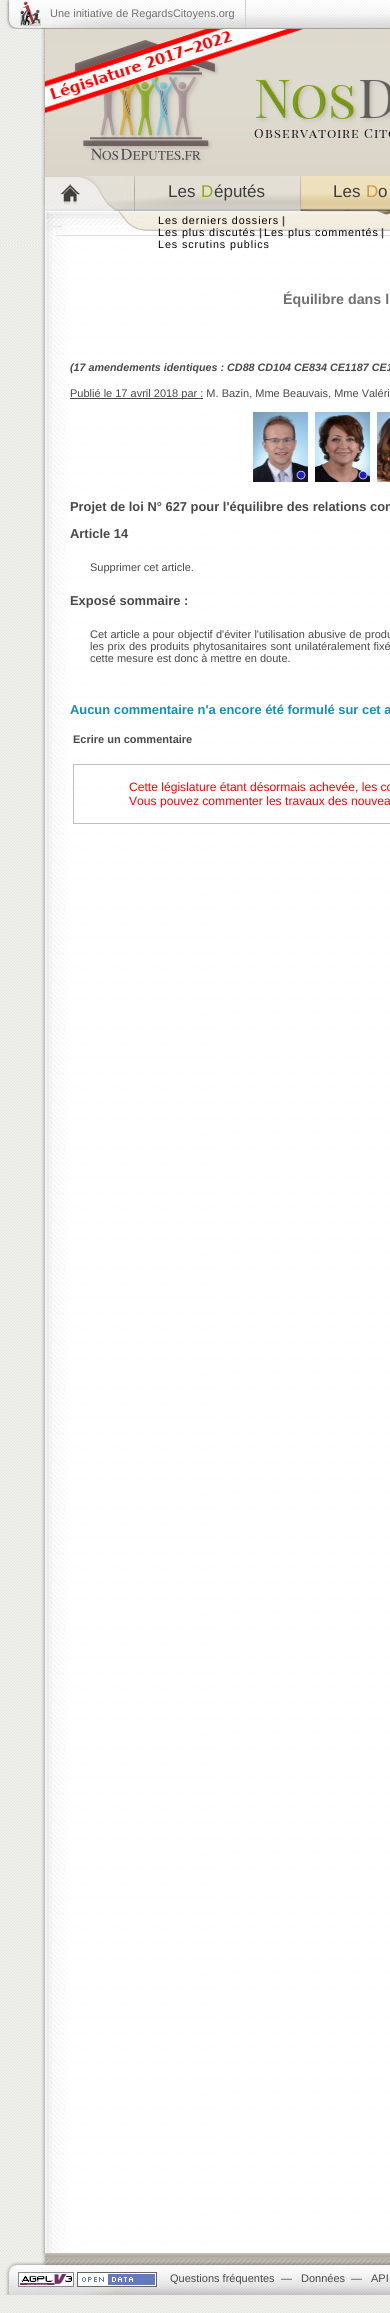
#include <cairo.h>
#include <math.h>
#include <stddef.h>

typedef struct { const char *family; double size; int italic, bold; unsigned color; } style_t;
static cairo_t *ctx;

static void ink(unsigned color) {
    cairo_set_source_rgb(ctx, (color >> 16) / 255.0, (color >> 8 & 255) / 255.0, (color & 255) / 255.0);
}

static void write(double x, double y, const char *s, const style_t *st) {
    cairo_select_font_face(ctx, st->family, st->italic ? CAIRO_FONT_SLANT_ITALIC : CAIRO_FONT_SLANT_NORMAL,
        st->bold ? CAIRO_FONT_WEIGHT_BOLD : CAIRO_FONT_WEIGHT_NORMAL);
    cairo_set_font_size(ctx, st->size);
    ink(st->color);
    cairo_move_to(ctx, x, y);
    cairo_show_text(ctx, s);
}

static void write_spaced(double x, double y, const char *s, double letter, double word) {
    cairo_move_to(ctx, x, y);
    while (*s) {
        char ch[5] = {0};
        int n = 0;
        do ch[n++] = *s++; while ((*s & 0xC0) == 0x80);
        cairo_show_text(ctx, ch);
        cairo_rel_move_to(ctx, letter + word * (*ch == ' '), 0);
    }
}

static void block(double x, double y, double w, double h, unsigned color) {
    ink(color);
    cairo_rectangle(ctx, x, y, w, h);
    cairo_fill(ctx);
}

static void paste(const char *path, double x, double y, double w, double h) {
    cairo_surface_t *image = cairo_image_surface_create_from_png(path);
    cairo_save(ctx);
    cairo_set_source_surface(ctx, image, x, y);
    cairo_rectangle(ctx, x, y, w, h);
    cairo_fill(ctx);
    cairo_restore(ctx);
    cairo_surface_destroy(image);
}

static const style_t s1 = {"Liberation Sans", 11, 0, 0, 0x6f6f6f};
static const style_t s2 = {"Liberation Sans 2", 17, 0, 0, 0x3c3c3c};
static const style_t s3 = {"Liberation Sans 2", 17, 0, 0, 0x8aa915};
static const style_t s4 = {"Liberation Sans 2", 17, 0, 0, 0xd4963e};
static const style_t s5 = {"Liberation Sans", 10.75, 0, 1, 0x484848};
static const style_t s6 = {"Liberation Sans", 14.25, 0, 1, 0x6f6f6f};
static const style_t s7 = {"Liberation Sans", 10.75, 1, 1, 0x484848};
static const style_t s8 = {"Liberation Sans", 11, 0, 0, 0x484848};
static const style_t s9 = {"Liberation Sans", 12.9, 0, 1, 0x484848};
static const style_t s10 = {"Liberation Sans", 12.9, 0, 1, 0x158eaf};
static const style_t s11 = {"Liberation Sans", 11, 0, 1, 0x484848};
static const style_t s12 = {"Liberation Sans", 12.1, 0, 0, 0xff0000};

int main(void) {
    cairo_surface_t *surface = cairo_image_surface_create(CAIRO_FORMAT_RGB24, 390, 2313);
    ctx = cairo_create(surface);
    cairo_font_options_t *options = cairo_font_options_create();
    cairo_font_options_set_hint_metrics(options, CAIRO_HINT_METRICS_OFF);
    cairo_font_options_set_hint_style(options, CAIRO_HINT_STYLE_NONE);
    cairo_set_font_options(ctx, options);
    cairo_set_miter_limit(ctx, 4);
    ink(0xffffff);
    cairo_paint(ctx);
    paste("pic1.png", 0, 246, 390, 2067);
    paste("pic2.png", 0, 0, 390, 29);
    paste("pic3.png", 20, 1, 21, 25);
    block(245, 0, 1, 28, 0xcfcfcf);
    write(50, 17, "Une initiative de RegardsCitoyens.org", &s1);
    paste("pic4.png", 0, 29, 44, 147);
    paste("pic5.png", 44, 29, 346, 147);
    paste("pic6.png", 0, 176, 300, 35);
    paste("pic7.png", 62, 185, 72, 26);
    paste("pic8.png", 134, 179, 1, 32);
    write(168, 197, "Les", &s2);
    write(201, 197, "D", &s3);
    write(214, 197, "éputés", &s2);
    paste("pic9.png", 300, 176, 90, 35);
    write(333, 197, "Les", &s2);
    write(366, 197, "D", &s4);
    write(378, 197, "o", &s2);
    paste("pic10.png", 0, 232, 390, 14);
    paste("pic11.png", 0, 211, 390, 21);
    cairo_select_font_face(ctx, "Liberation Sans", CAIRO_FONT_SLANT_NORMAL, CAIRO_FONT_WEIGHT_NORMAL);
    cairo_set_font_size(ctx, 10.75);
    ink(0x000000);
    write_spaced(158, 224, "Les derniers dossiers", 0.9, 0);
    write(282, 224, "|", &s5);
    cairo_select_font_face(ctx, "Liberation Sans", CAIRO_FONT_SLANT_NORMAL, CAIRO_FONT_WEIGHT_NORMAL);
    ink(0x000000);
    write_spaced(158, 236, "Les plus discutés", 0.9, 0);
    write(259, 236, "|", &s5);
    cairo_select_font_face(ctx, "Liberation Sans", CAIRO_FONT_SLANT_NORMAL, CAIRO_FONT_WEIGHT_NORMAL);
    ink(0x000000);
    write_spaced(264, 236, "Les plus commentés", 0.9, 0);
    write(381, 236, "|", &s5);
    paste("pic12.png", 41, 246, 349, 2007);
    cairo_select_font_face(ctx, "Liberation Sans", CAIRO_FONT_SLANT_NORMAL, CAIRO_FONT_WEIGHT_NORMAL);
    ink(0x000000);
    write_spaced(158, 248, "Les scrutins publics", 0.9, 0);
    write(283, 304, "Équilibre dans l", &s6);
    write(70, 371, "(17 amendements identiques : CD88 CD104 CE834 CE1187 CE1", &s7);
    block(70, 398, 133, 1, 0x484848);
    write(70, 397, "Publié le 17 avril 2018 par : M. Bazin, Mme Beauvais, Mme Valéri", &s8);
    paste("pic13.png", 253, 412, 55, 70);
    paste("pic14.png", 315, 412, 55, 70);
    paste("pic15.png", 377, 412, 13, 70);
    write(70, 511, "Projet de loi N° 627 pour l'équilibre des relations com", &s9);
    write(70, 538, "Article 14", &s9);
    write(90, 571, "Supprimer cet article.", &s8);
    write(70, 605, "Exposé sommaire :", &s9);
    cairo_select_font_face(ctx, "Liberation Sans", CAIRO_FONT_SLANT_NORMAL, CAIRO_FONT_WEIGHT_NORMAL);
    cairo_set_font_size(ctx, 11);
    write_spaced(90, 638, "Cet article a pour objectif d'éviter l'utilisation abusive de produ", 0, 0.25);
    write_spaced(90, 650, "les prix des produits phytosanitaires sont unilatéralement fixé", 0, 0.5);
    write(90, 662, "cette mesure est donc à mettre en doute.", &s8);
    write(70, 714, "Aucun commentaire n'a encore été formulé sur cet a", &s10);
    write(73, 743, "Ecrire un commentaire", &s11);
    cairo_rectangle(ctx, 73.5, 764.5, 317, 59);
    ink(0xbfbfbf);
    cairo_set_line_width(ctx, 1);
    cairo_stroke(ctx);
    write(129, 791, "Cette législature étant désormais achevée, les co", &s12);
    write(129, 805, "Vous pouvez commenter les travaux des nouvea", &s12);
    paste("pic16.png", 0, 2253, 390, 42);
    paste("pic17.png", 18, 2272, 56, 15);
    paste("pic18.png", 77, 2272, 80, 15);
    write(170, 2282, "Questions fréquentes", &s8);
    write(281, 2282, "—", &s8);
    write(301, 2282, "Données", &s8);
    write(351, 2282, "—", &s8);
    write(371, 2282, "API", &s8);
    cairo_surface_write_to_png(surface, "screenshot.png");
    cairo_font_options_destroy(options);
    cairo_destroy(ctx);
    cairo_surface_destroy(surface);
    return 0;
}
